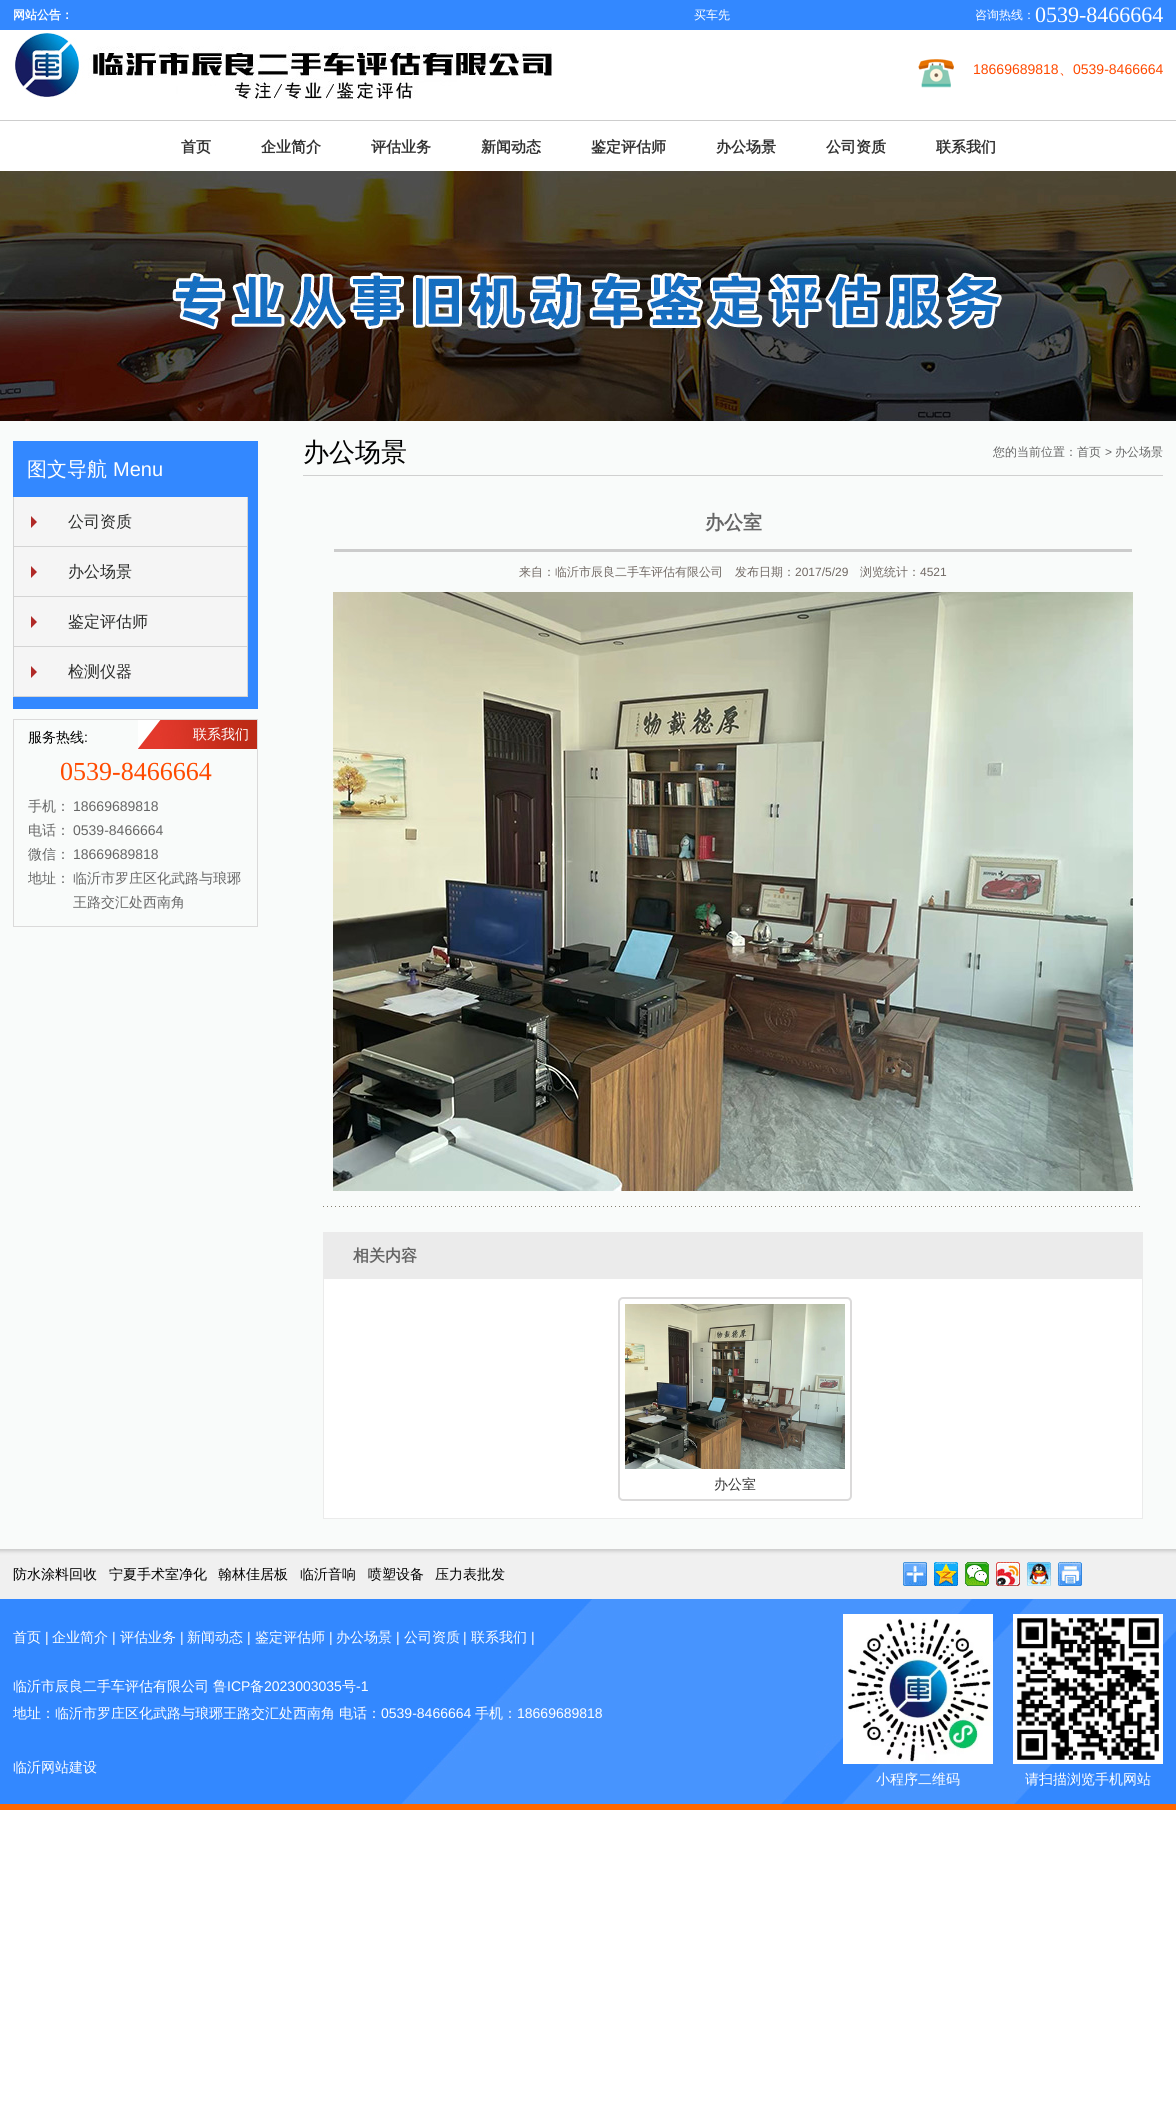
#include <cairo.h>
#include <math.h>
#include <stddef.h>

typedef struct { const char *family; double size; int italic, bold; unsigned color; } style_t;
static cairo_t *ctx;

static void ink(unsigned color) {
    cairo_set_source_rgb(ctx, (color >> 16) / 255.0, (color >> 8 & 255) / 255.0, (color & 255) / 255.0);
}

static void write(double x, double y, const char *s, const style_t *st) {
    cairo_select_font_face(ctx, st->family, st->italic ? CAIRO_FONT_SLANT_ITALIC : CAIRO_FONT_SLANT_NORMAL,
        st->bold ? CAIRO_FONT_WEIGHT_BOLD : CAIRO_FONT_WEIGHT_NORMAL);
    cairo_set_font_size(ctx, st->size);
    ink(st->color);
    cairo_move_to(ctx, x, y);
    cairo_show_text(ctx, s);
}

static void block(double x, double y, double w, double h, unsigned color) {
    ink(color);
    cairo_rectangle(ctx, x, y, w, h);
    cairo_fill(ctx);
}

static void round_path(double x, double y, double w, double h, double r) {
    cairo_new_sub_path(ctx);
    cairo_arc(ctx, x + w - r, y + h - r, r, 0, M_PI / 2);
    cairo_arc(ctx, x + r, y + h - r, r, M_PI / 2, M_PI);
    cairo_arc(ctx, x + r, y + r, r, M_PI, 1.5 * M_PI);
    cairo_arc(ctx, x + w - r, y + r, r, 1.5 * M_PI, 2 * M_PI);
    cairo_close_path(ctx);
}

static void paste(const char *path, double x, double y, double w, double h) {
    cairo_surface_t *image = cairo_image_surface_create_from_png(path);
    cairo_save(ctx);
    cairo_set_source_surface(ctx, image, x, y);
    cairo_rectangle(ctx, x, y, w, h);
    cairo_fill(ctx);
    cairo_restore(ctx);
    cairo_surface_destroy(image);
}

static const style_t s1 = {"WenQuanYi Zen Hei", 12, 0, 1, 0xffffff};
static const style_t s2 = {"WenQuanYi Zen Hei Medium", 12, 0, 0, 0xffffff};
static const style_t s3 = {"Liberation Serif", 22, 0, 0, 0xffffff};
static const style_t s4 = {"Liberation Sans", 14, 0, 0, 0xff4a00};
static const style_t s5 = {"WenQuanYi Zen Hei Medium", 14, 0, 0, 0xff4a00};
static const style_t s6 = {"WenQuanYi Zen Hei", 15, 0, 1, 0x333333};
static const style_t s7 = {"WenQuanYi Zen Hei Medium", 20, 0, 0, 0xffffff};
static const style_t s8 = {"Liberation Sans", 20, 0, 0, 0xffffff};
static const style_t s9 = {"WenQuanYi Zen Hei Medium", 16, 0, 0, 0x2c2d2c};
static const style_t s10 = {"WenQuanYi Zen Hei Medium", 14, 0, 0, 0x000000};
static const style_t s11 = {"Liberation Sans", 14, 0, 0, 0x000000};
static const style_t s12 = {"WenQuanYi Zen Hei Medium", 14, 0, 0, 0xffffff};
static const style_t s13 = {"Liberation Serif", 26, 0, 0, 0xff4a00};
static const style_t s14 = {"WenQuanYi Zen Hei Medium", 14, 0, 0, 0x666666};
static const style_t s15 = {"Liberation Sans", 14, 0, 0, 0x666666};
static const style_t s16 = {"WenQuanYi Zen Hei Medium", 26, 0, 0, 0x000000};
static const style_t s17 = {"WenQuanYi Zen Hei Medium", 12, 0, 0, 0x666666};
static const style_t s18 = {"Liberation Sans", 12, 0, 0, 0x666666};
static const style_t s19 = {"WenQuanYi Zen Hei", 19, 0, 1, 0x666666};
static const style_t s20 = {"WenQuanYi Zen Hei Medium", 12, 0, 0, 0x716964};
static const style_t s21 = {"Liberation Sans", 12, 0, 0, 0x716964};
static const style_t s22 = {"WenQuanYi Zen Hei", 16, 0, 1, 0x666666};
static const style_t s23 = {"WenQuanYi Zen Hei Medium", 14, 0, 0, 0x333333};
static const style_t s24 = {"Liberation Sans", 14, 0, 0, 0xffffff};

int main(void) {
    cairo_surface_t *surface = cairo_image_surface_create(CAIRO_FORMAT_RGB24, 1176, 2108);
    ctx = cairo_create(surface);
    cairo_font_options_t *options = cairo_font_options_create();
    cairo_font_options_set_hint_metrics(options, CAIRO_HINT_METRICS_OFF);
    cairo_font_options_set_hint_style(options, CAIRO_HINT_STYLE_NONE);
    cairo_set_font_options(ctx, options);
    cairo_set_miter_limit(ctx, 4);
    ink(0xffffff);
    cairo_paint(ctx);
    block(0, 0, 1176, 30, 0x3388ff);
    write(13, 19, "网站公告：", &s1);
    write(694, 19, "买车先", &s2);
    write(975, 19, "咨询热线：", &s2);
    write(1035, 22, "0539-8466664", &s3);
    paste("pic1.png", 15, 33, 537, 67);
    paste("pic2.png", 918, 59, 36, 29);
    write(973, 74, "18669689818", &s4);
    write(1059, 74, "、", &s5);
    write(1073, 74, "0539-8466664", &s4);
    block(0, 120, 1176, 1, 0xcdcdcd);
    write(181, 152, "首页", &s6);
    write(261, 152, "企业简介", &s6);
    write(371, 152, "评估业务", &s6);
    write(481, 152, "新闻动态", &s6);
    write(591, 152, "鉴定评估师", &s6);
    write(716, 152, "办公场景", &s6);
    write(826, 152, "公司资质", &s6);
    write(936, 152, "联系我们", &s6);
    paste("pic3.png", 0, 171, 1176, 250);
    block(0, 421, 1176, 1128, 0xf9fbfa);
    block(13, 441, 245, 268, 0x3388ff);
    write(27, 476, "图文导航", &s7);
    write(113, 476, "Menu", &s8);
    paste("pic4.png", 13, 497, 235, 50);
    write(68, 527, "公司资质", &s9);
    paste("pic4.png", 13, 547, 235, 50);
    write(68, 577, "办公场景", &s9);
    paste("pic4.png", 13, 597, 235, 50);
    write(68, 627, "鉴定评估师", &s9);
    paste("pic4.png", 13, 647, 235, 50);
    write(68, 677, "检测仪器", &s9);
    cairo_rectangle(ctx, 13.5, 719.5, 244, 207);
    ink(0xdbdada);
    cairo_set_line_width(ctx, 1);
    cairo_stroke(ctx);
    paste("pic5.png", 138, 720, 119, 29);
    write(28, 742, "服务热线", &s10);
    write(84, 742, ":", &s11);
    write(193, 739, "联系我们", &s12);
    write(60, 780, "0539-8466664", &s13);
    write(28, 811, "手机：", &s14);
    write(73, 811, "18669689818", &s15);
    write(28, 835, "电话：", &s14);
    write(73, 835, "0539-8466664", &s15);
    write(28, 859, "微信：", &s14);
    write(73, 859, "18669689818", &s15);
    write(28, 883, "地址：", &s14);
    write(73, 883, "临沂市罗庄区化武路与琅琊", &s14);
    write(73, 907, "王路交汇处西南角", &s14);
    block(303, 475, 860, 1, 0xd0d0d0);
    write(303, 461, "办公场景", &s16);
    write(993, 456, "您的当前位置：首页", &s17);
    write(1105, 456, ">", &s18);
    write(1115, 456, "办公场景", &s17);
    write(705, 529, "办公室", &s19);
    block(334, 549, 798, 3, 0xcccccc);
    write(519, 576, "来自：临沂市辰良二手车评估有限公司　发布日期：", &s20);
    write(795, 576, "2017/5/29", &s21);
    write(860, 576, "浏览统计：", &s20);
    write(920, 576, "4521", &s21);
    paste("pic6.png", 333, 592, 800, 599);
    paste("pic7.png", 323, 1206, 817, 1);
    block(323, 1232, 820, 287, 0xebebeb);
    write(353, 1261, "相关内容", &s22);
    block(324, 1279, 818, 239, 0xffffff);
    round_path(619, 1298, 232, 202, 4);
    ink(0xdbdada);
    cairo_set_line_width(ctx, 2);
    cairo_stroke(ctx);
    paste("pic8.png", 625, 1304, 220, 165);
    write(714, 1489, "办公室", &s23);
    paste("pic9.png", 0, 1549, 1176, 50);
    write(13, 1579, "防水涂料回收", &s10);
    write(109, 1579, "宁夏手术室净化", &s10);
    write(218, 1579, "翰林佳居板", &s10);
    write(300, 1579, "临沂音响", &s10);
    write(368, 1579, "喷塑设备", &s10);
    write(435, 1579, "压力表批发", &s10);
    paste("pic10.png", 903, 1562, 24, 24);
    paste("pic11.png", 934, 1562, 24, 24);
    paste("pic12.png", 965, 1562, 24, 24);
    paste("pic13.png", 996, 1562, 24, 24);
    paste("pic14.png", 1027, 1562, 24, 24);
    paste("pic15.png", 1058, 1562, 24, 24);
    paste("pic16.png", 0, 1599, 1176, 205);
    write(13, 1642, "首页", &s12);
    write(45, 1642, "|", &s24);
    write(52, 1642, "企业简介", &s12);
    write(112, 1642, "|", &s24);
    write(120, 1642, "评估业务", &s12);
    write(180, 1642, "|", &s24);
    write(187, 1642, "新闻动态", &s12);
    write(247, 1642, "|", &s24);
    write(255, 1642, "鉴定评估师", &s12);
    write(329, 1642, "|", &s24);
    write(336, 1642, "办公场景", &s12);
    write(396, 1642, "|", &s24);
    write(404, 1642, "公司资质", &s12);
    write(463, 1642, "|", &s24);
    write(471, 1642, "联系我们", &s12);
    write(531, 1642, "|", &s24);
    write(13, 1691, "临沂市辰良二手车评估有限公司", &s12);
    write(213, 1691, "鲁", &s12);
    write(227, 1691, "ICP", &s24);
    write(250, 1691, "备", &s12);
    write(264, 1691, "2023003035", &s24);
    write(342, 1691, "号", &s12);
    write(356, 1691, "-1", &s24);
    write(13, 1718, "地址：临沂市罗庄区化武路与琅琊王路交汇处西南角", &s12);
    write(339, 1718, "电话：", &s12);
    write(381, 1718, "0539-8466664", &s24);
    write(475, 1718, "手机：", &s12);
    write(517, 1718, "18669689818", &s24);
    write(13, 1772, "临沂网站建设", &s12);
    paste("pic17.png", 843, 1614, 150, 150);
    write(876, 1784, "小程序二维码", &s12);
    paste("pic18.png", 1013, 1614, 150, 150);
    write(1025, 1784, "请扫描浏览手机网站", &s12);
    block(0, 1804, 1176, 6, 0xff6700);
    cairo_surface_write_to_png(surface, "screenshot.png");
    cairo_font_options_destroy(options);
    cairo_destroy(ctx);
    cairo_surface_destroy(surface);
    return 0;
}
